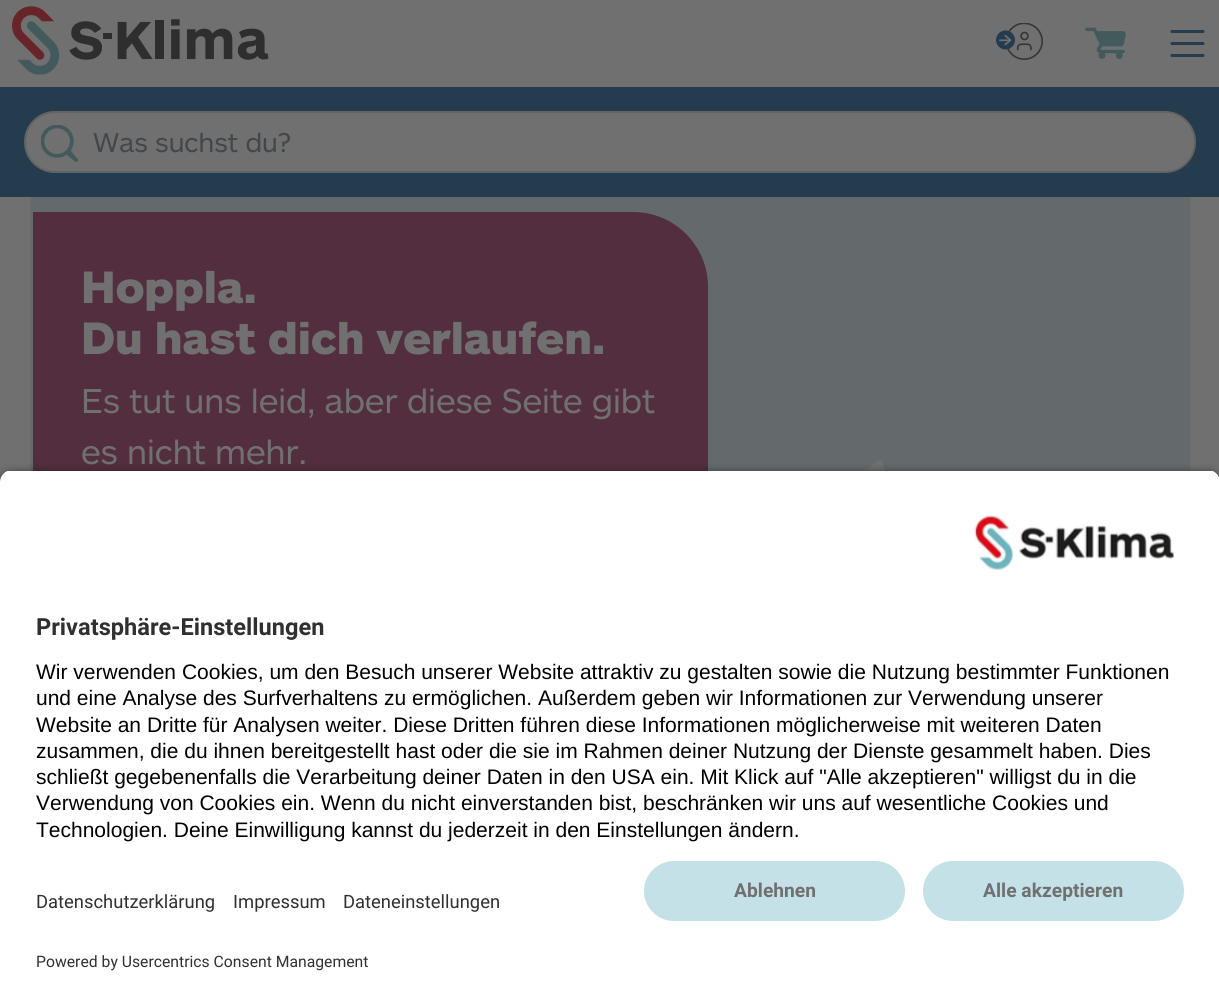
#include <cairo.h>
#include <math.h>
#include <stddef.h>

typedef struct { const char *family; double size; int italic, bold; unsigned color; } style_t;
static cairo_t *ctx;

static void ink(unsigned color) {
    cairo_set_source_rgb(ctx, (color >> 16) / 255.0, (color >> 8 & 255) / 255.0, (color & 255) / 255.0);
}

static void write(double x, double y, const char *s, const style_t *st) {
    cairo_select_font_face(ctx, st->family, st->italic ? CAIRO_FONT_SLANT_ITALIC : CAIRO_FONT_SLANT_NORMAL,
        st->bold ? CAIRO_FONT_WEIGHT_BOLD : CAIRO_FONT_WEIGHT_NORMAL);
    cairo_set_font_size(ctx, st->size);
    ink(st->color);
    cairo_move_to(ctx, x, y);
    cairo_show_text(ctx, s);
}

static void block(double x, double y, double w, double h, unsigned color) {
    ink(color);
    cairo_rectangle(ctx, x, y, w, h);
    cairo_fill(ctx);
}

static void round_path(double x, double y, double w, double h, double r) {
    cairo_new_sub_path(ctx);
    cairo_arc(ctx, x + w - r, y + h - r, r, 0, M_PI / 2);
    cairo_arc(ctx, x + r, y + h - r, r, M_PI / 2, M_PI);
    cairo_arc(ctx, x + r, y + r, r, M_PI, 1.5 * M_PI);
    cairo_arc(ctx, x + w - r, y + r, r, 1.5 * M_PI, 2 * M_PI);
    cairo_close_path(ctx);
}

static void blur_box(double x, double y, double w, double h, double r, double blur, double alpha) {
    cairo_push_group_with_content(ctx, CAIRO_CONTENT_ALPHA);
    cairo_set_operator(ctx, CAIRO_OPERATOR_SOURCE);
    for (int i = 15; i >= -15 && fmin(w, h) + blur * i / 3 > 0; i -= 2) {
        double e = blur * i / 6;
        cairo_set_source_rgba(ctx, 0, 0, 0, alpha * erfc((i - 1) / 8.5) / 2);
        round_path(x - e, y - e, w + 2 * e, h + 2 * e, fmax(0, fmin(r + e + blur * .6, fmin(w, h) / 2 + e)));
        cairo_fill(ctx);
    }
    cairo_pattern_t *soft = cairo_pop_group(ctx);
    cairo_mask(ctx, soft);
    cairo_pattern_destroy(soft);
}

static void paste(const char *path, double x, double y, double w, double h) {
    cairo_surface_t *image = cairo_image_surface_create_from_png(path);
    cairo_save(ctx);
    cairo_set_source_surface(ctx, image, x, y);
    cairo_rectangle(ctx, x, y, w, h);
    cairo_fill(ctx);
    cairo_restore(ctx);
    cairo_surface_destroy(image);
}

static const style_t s1 = {"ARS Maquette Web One", 27, 0, 0, 0x444749};
static const style_t s2 = {"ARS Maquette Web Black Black", 45, 0, 0, 0x707070};
static const style_t s3 = {"ARS Maquette Web One", 34.25, 0, 0, 0x707070};
static const style_t s4 = {"Roboto", 23.6, 0, 1, 0x303030};
static const style_t s5 = {"Liberation Sans", 21, 0, 0, 0x000000};
static const style_t s6 = {"Roboto", 19.25, 0, 1, 0x707070};
static const style_t s7 = {"Roboto", 18.4, 0, 0, 0x303030};
static const style_t s8 = {"Roboto", 15.75, 0, 0, 0x303030};

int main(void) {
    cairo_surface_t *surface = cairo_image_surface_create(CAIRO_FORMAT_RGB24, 1219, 1008);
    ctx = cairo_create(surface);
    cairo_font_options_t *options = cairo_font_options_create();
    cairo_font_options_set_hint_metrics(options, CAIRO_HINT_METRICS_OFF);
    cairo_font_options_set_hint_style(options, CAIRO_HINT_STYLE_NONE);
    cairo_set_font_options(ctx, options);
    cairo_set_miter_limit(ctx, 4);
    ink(0x707070);
    cairo_paint(ctx);
    paste("pic1.png", 12, 6, 257, 69);
    paste("pic2.png", 996, 23, 47, 37);
    paste("pic3.png", 1085, 27, 41, 32);
    cairo_new_path(ctx);
    cairo_move_to(ctx, 1172, 31.5);
    cairo_line_to(ctx, 1203, 31.5);
    cairo_move_to(ctx, 1172, 43.5);
    cairo_line_to(ctx, 1203, 43.5);
    cairo_move_to(ctx, 1172, 55.5);
    cairo_line_to(ctx, 1203, 55.5);
    ink(0x253c4e);
    cairo_set_line_width(ctx, 3);
    cairo_set_line_cap(ctx, CAIRO_LINE_CAP_ROUND);
    cairo_stroke(ctx);
    block(0, 87, 1219, 110, 0x253c4e);
    ink(0x707070);
    round_path(25, 112, 1170, 60, 30);
    cairo_fill_preserve(ctx);
    ink(0x626365);
    cairo_set_line_width(ctx, 2);
    cairo_set_line_cap(ctx, CAIRO_LINE_CAP_BUTT);
    cairo_stroke(ctx);
    paste("pic4.png", 41, 125, 37, 37);
    write(93, 152, "Was suchst du?", &s1);
    block(30, 197, 1160, 274, 0x646a6b);
    ink(0x532e3e);
    cairo_new_path(ctx);
    cairo_move_to(ctx, 33, 212);
    cairo_line_to(ctx, 633, 212);
    cairo_curve_to(ctx, 674.5, 212, 708, 245.5, 708, 287);
    cairo_line_to(ctx, 708, 549);
    cairo_line_to(ctx, 108, 549);
    cairo_curve_to(ctx, 66.5, 549, 33, 515.5, 33, 474);
    cairo_close_path(ctx);
    cairo_fill(ctx);
    write(81, 303, "Hoppla.", &s2);
    write(81, 354, "Du hast dich verlaufen.", &s2);
    write(81, 413, "Es tut uns leid, aber diese Seite gibt", &s3);
    write(81, 464, "es nicht mehr.", &s3);
    paste("pic5.png", 866, 459, 20, 12);
    ink(0x000000);
    blur_box(0, 474, 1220, 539, 12, 5, 0.8);
    cairo_save(ctx);
    cairo_new_path(ctx);
    cairo_move_to(ctx, 12, 470);
    cairo_line_to(ctx, 1208, 470);
    cairo_curve_to(ctx, 1214.5, 470, 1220, 475.5, 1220, 482);
    cairo_line_to(ctx, 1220, 849);
    cairo_line_to(ctx, 0, 849);
    cairo_line_to(ctx, 0, 482);
    cairo_curve_to(ctx, 0, 475.5, 5.5, 470, 12, 470);
    cairo_close_path(ctx);
    cairo_clip(ctx);
    block(0, 471, 1219, 378, 0xffffff);
    cairo_restore(ctx);
    paste("pic6.png", 974, 515, 200, 56);
    write(36, 635, "Privatsphäre-Einstellungen", &s4);
    write(36, 679, "Wir verwenden Cookies, um den Besuch unserer Website attraktiv zu gestalten sowie die Nutzung bestimmter Funktionen", &s5);
    write(36, 705, "und eine Analyse des Surfverhaltens zu ermöglichen. Außerdem geben wir Informationen zur Verwendung unserer", &s5);
    write(36, 732, "Website an Dritte für Analysen weiter. Diese Dritten führen diese Informationen möglicherweise mit weiteren Daten", &s5);
    write(36, 758, "zusammen, die du ihnen bereitgestellt hast oder die sie im Rahmen deiner Nutzung der Dienste gesammelt haben. Dies", &s5);
    write(36, 784, "schließt gegebenenfalls die Verarbeitung deiner Daten in den USA ein. Mit Klick auf \"Alle akzeptieren\" willigst du in die", &s5);
    write(36, 810, "Verwendung von Cookies ein. Wenn du nicht einverstanden bist, beschränken wir uns auf wesentliche Cookies und", &s5);
    write(36, 837, "Technologien. Deine Einwilligung kannst du jederzeit in den Einstellungen ändern.", &s5);
    block(0, 849, 1219, 159, 0xffffff);
    ink(0xc3e1e6);
    round_path(644, 861, 261, 60, 30);
    cairo_fill(ctx);
    write(734, 897, "Ablehnen", &s6);
    ink(0xc3e1e6);
    round_path(923, 861, 261, 60, 30);
    cairo_fill(ctx);
    write(983, 897, "Alle akzeptieren", &s6);
    write(36, 908, "Datenschutzerklärung", &s7);
    write(233, 908, "Impressum", &s7);
    write(343, 908, "Dateneinstellungen", &s7);
    write(36, 967, "Powered by Usercentrics Consent Management", &s8);
    cairo_surface_write_to_png(surface, "screenshot.png");
    cairo_font_options_destroy(options);
    cairo_destroy(ctx);
    cairo_surface_destroy(surface);
    return 0;
}
